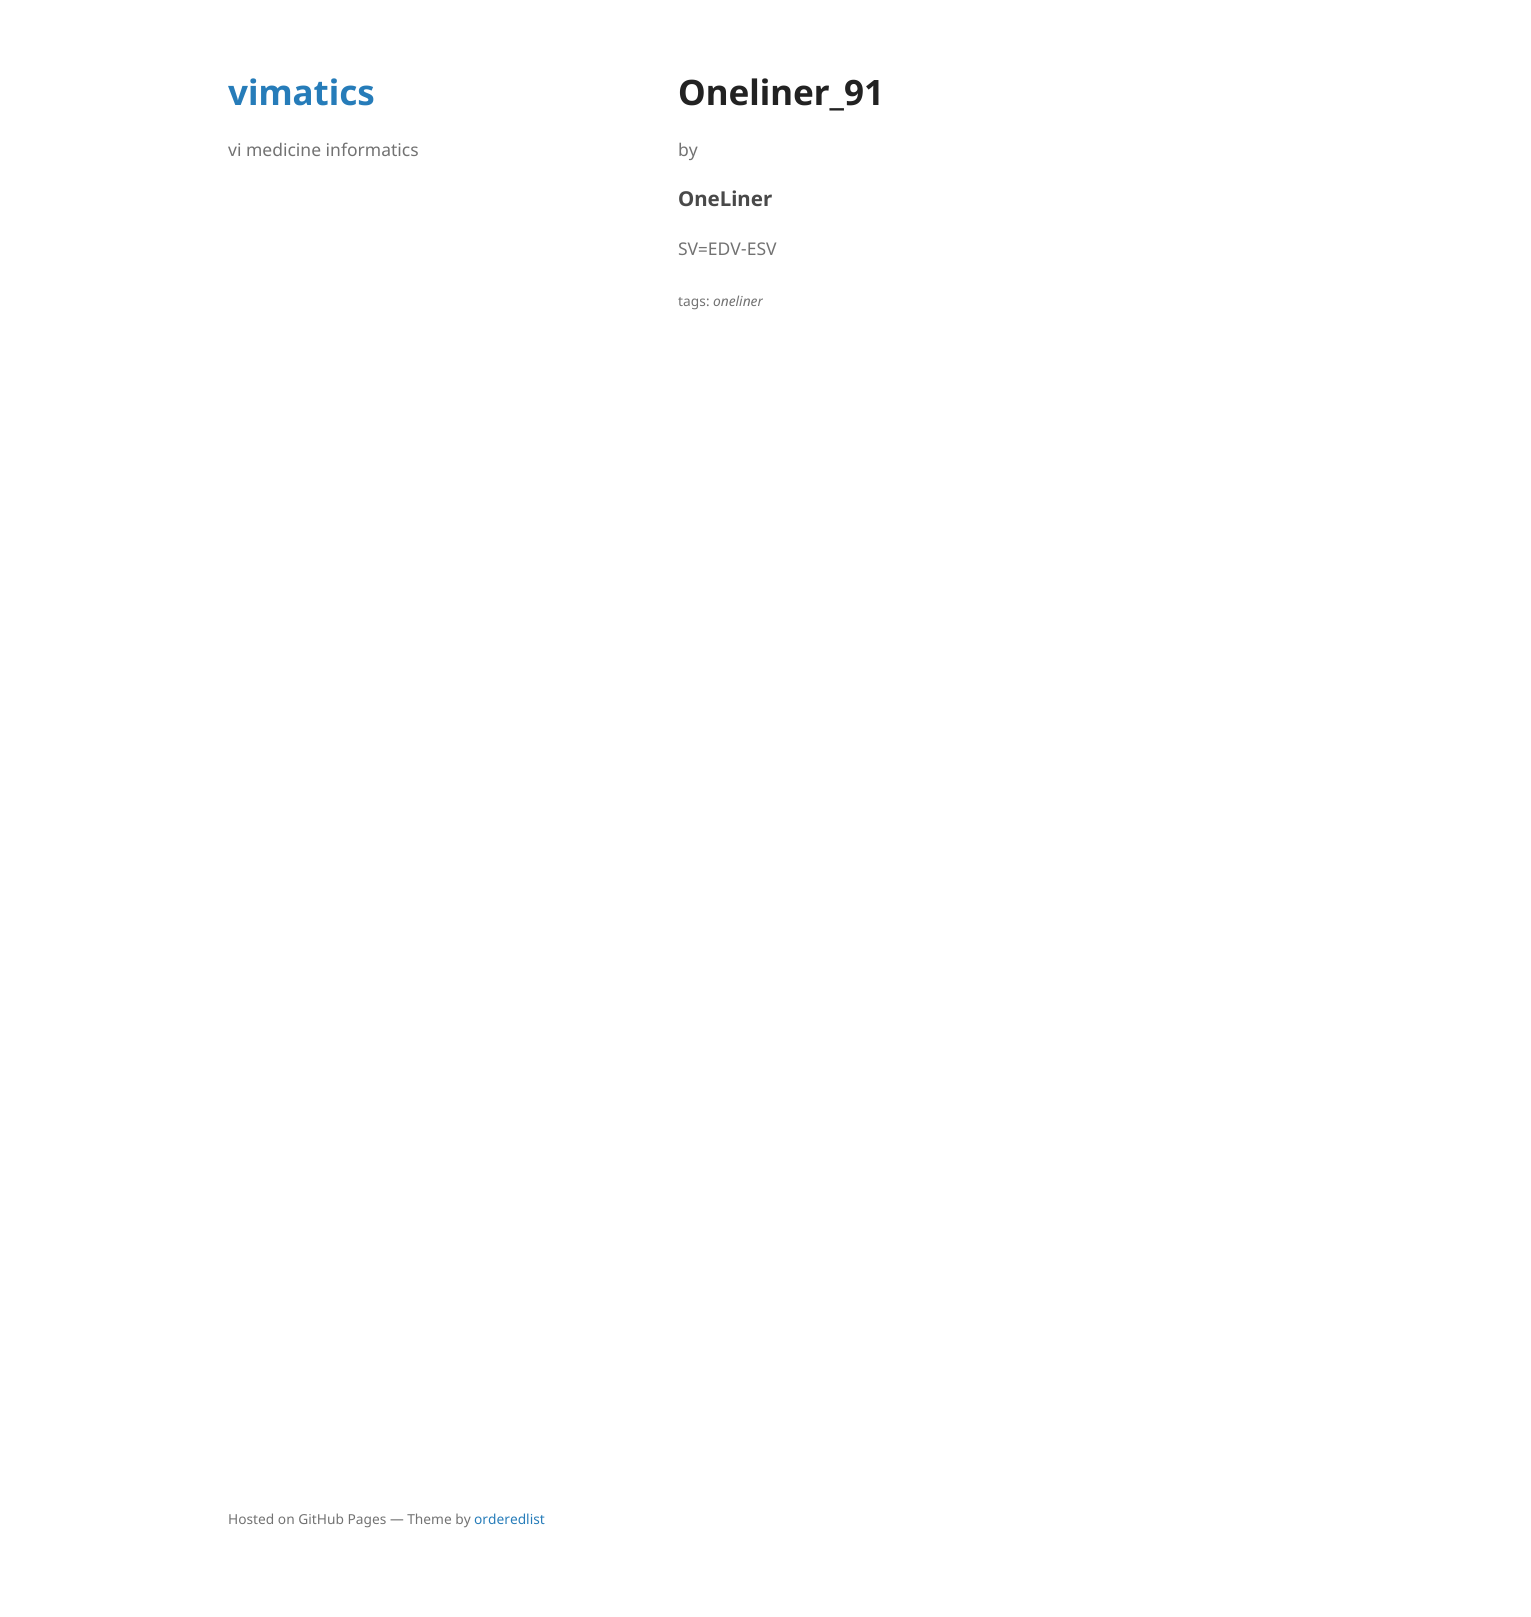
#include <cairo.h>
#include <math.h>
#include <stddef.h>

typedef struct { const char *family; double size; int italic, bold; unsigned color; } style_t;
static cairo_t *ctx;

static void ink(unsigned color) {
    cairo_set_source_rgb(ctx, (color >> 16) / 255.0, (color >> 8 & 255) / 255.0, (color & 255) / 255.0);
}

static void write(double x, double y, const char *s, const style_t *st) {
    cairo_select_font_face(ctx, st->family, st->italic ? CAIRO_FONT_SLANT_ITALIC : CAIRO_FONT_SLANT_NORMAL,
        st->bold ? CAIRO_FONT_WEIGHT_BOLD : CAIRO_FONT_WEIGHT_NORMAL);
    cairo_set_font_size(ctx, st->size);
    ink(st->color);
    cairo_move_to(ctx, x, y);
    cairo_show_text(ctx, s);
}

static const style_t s1 = {"Noto Sans", 35, 0, 1, 0x267cb9};
static const style_t s2 = {"Noto Sans", 17.5, 0, 0, 0x727272};
static const style_t s3 = {"Noto Sans", 35, 0, 1, 0x222222};
static const style_t s4 = {"Noto Sans", 20.5, 0, 1, 0x494949};
static const style_t s5 = {"Noto Sans", 13.75, 0, 0, 0x727272};
static const style_t s6 = {"Noto Sans", 13.75, 1, 0, 0x727272};
static const style_t s7 = {"Noto Sans", 13.75, 0, 0, 0x267cb9};

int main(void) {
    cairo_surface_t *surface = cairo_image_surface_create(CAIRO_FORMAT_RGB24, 1531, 1617);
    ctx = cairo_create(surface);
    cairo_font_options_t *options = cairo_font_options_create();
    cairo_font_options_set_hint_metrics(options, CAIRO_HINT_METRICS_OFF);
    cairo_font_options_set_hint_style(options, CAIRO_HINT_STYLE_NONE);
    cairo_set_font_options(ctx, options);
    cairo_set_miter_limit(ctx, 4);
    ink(0xffffff);
    cairo_paint(ctx);
    write(228, 105, "vimatics", &s1);
    write(228, 156, "vi medicine informatics", &s2);
    write(678, 105, "Oneliner_91", &s3);
    write(678, 156, "by", &s2);
    write(678, 206, "OneLiner", &s4);
    write(678, 255, "SV=EDV-ESV", &s2);
    write(678, 306, "tags:", &s5);
    write(713, 306, "oneliner", &s6);
    write(228, 1524, "Hosted on GitHub Pages — Theme by", &s5);
    write(474, 1524, "orderedlist", &s7);
    cairo_surface_write_to_png(surface, "screenshot.png");
    cairo_font_options_destroy(options);
    cairo_destroy(ctx);
    cairo_surface_destroy(surface);
    return 0;
}
